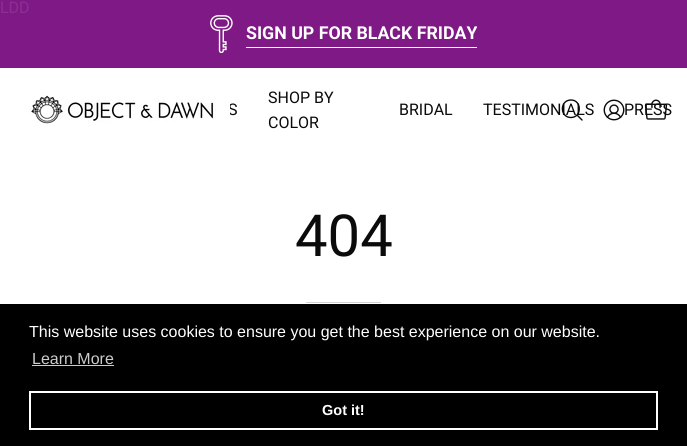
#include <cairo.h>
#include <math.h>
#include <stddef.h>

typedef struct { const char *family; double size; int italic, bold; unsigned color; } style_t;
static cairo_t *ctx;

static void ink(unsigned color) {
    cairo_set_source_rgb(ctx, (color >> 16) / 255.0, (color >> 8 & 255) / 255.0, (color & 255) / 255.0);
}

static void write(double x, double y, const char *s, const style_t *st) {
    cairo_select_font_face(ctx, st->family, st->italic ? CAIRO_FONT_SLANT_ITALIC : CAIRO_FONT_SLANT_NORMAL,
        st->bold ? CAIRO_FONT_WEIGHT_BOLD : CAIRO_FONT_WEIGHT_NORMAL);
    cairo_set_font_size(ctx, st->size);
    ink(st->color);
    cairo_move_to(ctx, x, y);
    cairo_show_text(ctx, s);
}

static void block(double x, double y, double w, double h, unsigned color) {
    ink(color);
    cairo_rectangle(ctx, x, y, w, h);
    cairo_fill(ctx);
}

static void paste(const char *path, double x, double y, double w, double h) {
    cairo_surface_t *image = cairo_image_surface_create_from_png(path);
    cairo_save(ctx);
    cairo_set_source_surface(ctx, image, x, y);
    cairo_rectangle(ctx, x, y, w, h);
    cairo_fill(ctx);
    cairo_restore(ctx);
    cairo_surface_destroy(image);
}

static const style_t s1 = {"Roboto", 16, 0, 0, 0x8b3091};
static const style_t s2 = {"Roboto", 17.75, 0, 1, 0xffffff};
static const style_t s3 = {"Roboto", 16, 0, 0, 0x0b0b0b};
static const style_t s4 = {"Roboto", 58, 0, 0, 0x0b0b0b};
static const style_t s5 = {"Liberation Sans", 16, 0, 0, 0xffffff};
static const style_t s6 = {"Liberation Sans", 16, 0, 0, 0xcccccc};
static const style_t s7 = {"Liberation Sans", 14.5, 0, 1, 0xffffff};

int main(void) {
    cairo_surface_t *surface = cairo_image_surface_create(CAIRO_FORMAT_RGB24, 687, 446);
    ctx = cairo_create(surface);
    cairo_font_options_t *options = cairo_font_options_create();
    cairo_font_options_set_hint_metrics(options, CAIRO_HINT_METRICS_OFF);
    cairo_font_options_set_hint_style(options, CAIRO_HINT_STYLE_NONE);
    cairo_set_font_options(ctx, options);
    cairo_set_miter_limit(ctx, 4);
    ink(0xffffff);
    cairo_paint(ctx);
    block(0, 0, 687, 68, 0x7e1985);
    write(0, 13, "LDD", &s1);
    paste("pic1.png", 210, 15, 23, 38);
    write(246, 39, "SIGN UP FOR BLACK FRIDAY", &s2);
    block(246, 47, 231, 1, 0xffffff);
    write(228, 115, "S", &s3);
    paste("pic2.png", 20, 91, 210, 38);
    write(268, 103, "SHOP BY", &s3);
    write(268, 128, "COLOR", &s3);
    write(399, 115, "BRIDAL", &s3);
    write(483, 115, "TESTIMONIALS", &s3);
    write(624, 115, "PRESS", &s3);
    cairo_new_path(ctx);
    cairo_move_to(ctx, 571, 117.5);
    cairo_curve_to(ctx, 582, 117.5, 582, 100, 571, 100);
    cairo_curve_to(ctx, 559.5, 100, 559.5, 117.5, 571, 117.5);
    cairo_close_path(ctx);
    cairo_move_to(ctx, 577, 115);
    cairo_line_to(ctx, 582, 120);
    cairo_set_line_width(ctx, 1.4);
    cairo_set_line_cap(ctx, CAIRO_LINE_CAP_ROUND);
    cairo_set_line_join(ctx, CAIRO_LINE_JOIN_ROUND);
    cairo_stroke(ctx);
    paste("pic3.png", 603, 99, 22, 22);
    paste("pic4.png", 644, 99, 24, 21);
    write(295, 256, "404", &s4);
    block(306, 302, 75, 1, 0xd3d3d3);
    block(0, 304, 687, 142, 0x000000);
    write(29, 337, "This website uses cookies to ensure you get the best experience on our website.", &s5);
    write(32, 364, "Learn More", &s6);
    block(32, 365, 82, 1, 0xcccccc);
    cairo_rectangle(ctx, 30, 392, 627, 37);
    ink(0xffffff);
    cairo_set_line_width(ctx, 2);
    cairo_set_line_cap(ctx, CAIRO_LINE_CAP_BUTT);
    cairo_set_line_join(ctx, CAIRO_LINE_JOIN_MITER);
    cairo_stroke(ctx);
    write(322, 415, "Got it!", &s7);
    cairo_surface_write_to_png(surface, "screenshot.png");
    cairo_font_options_destroy(options);
    cairo_destroy(ctx);
    cairo_surface_destroy(surface);
    return 0;
}
